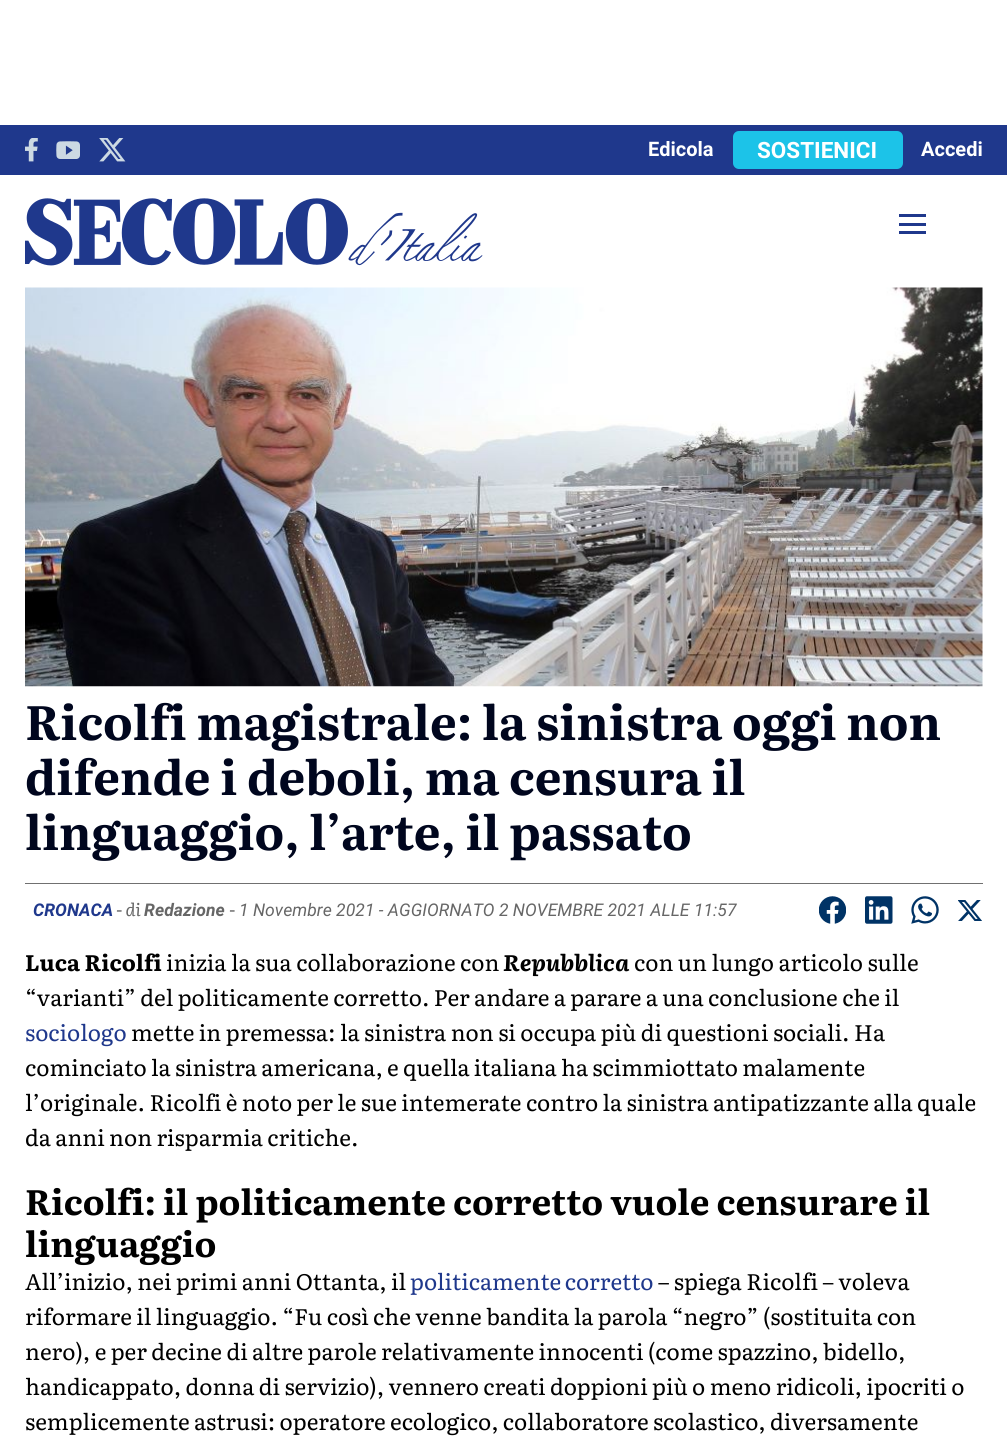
#include <cairo.h>
#include <math.h>
#include <stddef.h>

typedef struct { const char *family; double size; int italic, bold; unsigned color; } style_t;
static cairo_t *ctx;

static void ink(unsigned color) {
    cairo_set_source_rgb(ctx, (color >> 16) / 255.0, (color >> 8 & 255) / 255.0, (color & 255) / 255.0);
}

static void write(double x, double y, const char *s, const style_t *st) {
    cairo_select_font_face(ctx, st->family, st->italic ? CAIRO_FONT_SLANT_ITALIC : CAIRO_FONT_SLANT_NORMAL,
        st->bold ? CAIRO_FONT_WEIGHT_BOLD : CAIRO_FONT_WEIGHT_NORMAL);
    cairo_set_font_size(ctx, st->size);
    ink(st->color);
    cairo_move_to(ctx, x, y);
    cairo_show_text(ctx, s);
}

static void write_spaced(double x, double y, const char *s, double letter, double word) {
    cairo_move_to(ctx, x, y);
    while (*s) {
        char ch[5] = {0};
        int n = 0;
        do ch[n++] = *s++; while ((*s & 0xC0) == 0x80);
        cairo_show_text(ctx, ch);
        cairo_rel_move_to(ctx, letter + word * (*ch == ' '), 0);
    }
}

static void block(double x, double y, double w, double h, unsigned color) {
    ink(color);
    cairo_rectangle(ctx, x, y, w, h);
    cairo_fill(ctx);
}

static void round_path(double x, double y, double w, double h, double r) {
    cairo_new_sub_path(ctx);
    cairo_arc(ctx, x + w - r, y + h - r, r, 0, M_PI / 2);
    cairo_arc(ctx, x + r, y + h - r, r, M_PI / 2, M_PI);
    cairo_arc(ctx, x + r, y + r, r, M_PI, 1.5 * M_PI);
    cairo_arc(ctx, x + w - r, y + r, r, 1.5 * M_PI, 2 * M_PI);
    cairo_close_path(ctx);
}

static void paste(const char *path, double x, double y, double w, double h) {
    cairo_surface_t *image = cairo_image_surface_create_from_png(path);
    cairo_save(ctx);
    cairo_set_source_surface(ctx, image, x, y);
    cairo_rectangle(ctx, x, y, w, h);
    cairo_fill(ctx);
    cairo_restore(ctx);
    cairo_surface_destroy(image);
}

static const style_t s1 = {"Roboto", 20, 0, 1, 0xffffff};
static const style_t s2 = {"Roboto", 22.5, 0, 1, 0xffffff};
static const style_t s3 = {"Literata", 47.5, 0, 1, 0x00061e};
static const style_t s4 = {"Roboto", 17.5, 1, 1, 0x1f388c};
static const style_t s5 = {"Literata", 17.5, 1, 0, 0x666666};
static const style_t s6 = {"Roboto", 17.5, 1, 1, 0x666666};
static const style_t s7 = {"Roboto", 17.5, 1, 0, 0x666666};
static const style_t s8 = {"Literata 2", 22.5, 0, 1, 0x000000};
static const style_t s9 = {"Literata", 22.5, 0, 0, 0x000000};
static const style_t s10 = {"Literata", 22.5, 1, 1, 0x000000};
static const style_t s11 = {"Literata", 22.5, 0, 0, 0x1f388c};
static const style_t s12 = {"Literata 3", 35, 0, 1, 0x000000};

int main(void) {
    cairo_surface_t *surface = cairo_image_surface_create(CAIRO_FORMAT_RGB24, 1007, 1437);
    ctx = cairo_create(surface);
    cairo_font_options_t *options = cairo_font_options_create();
    cairo_font_options_set_hint_metrics(options, CAIRO_HINT_METRICS_OFF);
    cairo_font_options_set_hint_style(options, CAIRO_HINT_STYLE_NONE);
    cairo_set_font_options(ctx, options);
    cairo_set_miter_limit(ctx, 4);
    ink(0xffffff);
    cairo_paint(ctx);
    block(0, 125, 1007, 50, 0x1f388c);
    paste("pic1.png", 25, 138, 13, 24);
    paste("pic2.png", 56, 141, 24, 18);
    paste("pic3.png", 99, 138, 27, 24);
    write(648, 156, "Edicola", &s1);
    ink(0x1cc3e8);
    round_path(733, 131, 170, 38, 6);
    cairo_fill(ctx);
    write(757, 158, "SOSTIENICI", &s2);
    write(921, 156, "Accedi", &s1);
    paste("pic4.png", 25, 198, 458, 68);
    block(899, 214, 27, 3, 0x1f388c);
    block(899, 223, 27, 3, 0x1f388c);
    block(899, 231, 27, 3, 0x1f388c);
    paste("pic5.png", 25, 287, 958, 400);
    write(25, 740, "Ricolfi magistrale: la sinistra oggi non", &s3);
    write(25, 795, "difende i deboli, ma censura il", &s3);
    write(25, 850, "linguaggio, l’arte, il passato", &s3);
    block(25, 883, 958, 1, 0x707070);
    write(33, 916, "CRONACA", &s4);
    write(116, 916, "- di", &s5);
    write(144, 916, "Redazione", &s6);
    write(229, 916, "-", &s5);
    write(239, 916, "1 Novembre 2021 - AGGIORNATO 2 NOVEMBRE 2021 ALLE 11:57", &s7);
    paste("pic6.png", 819, 896, 27, 28);
    paste("pic7.png", 865, 896, 28, 28);
    paste("pic8.png", 911, 896, 28, 28);
    paste("pic9.png", 958, 900, 24, 21);
    write(25, 971, "Luca Ricolfi", &s8);
    write(166, 971, "inizia la sua collaborazione con", &s9);
    write(503, 971, "Repubblica", &s10);
    write(634, 971, "con un lungo articolo sulle", &s9);
    write_spaced(25, 1006, "“varianti” del politicamente corretto. Per andare a parare a una conclusione che il", 0, -0.1);
    write(25, 1041, "sociologo", &s11);
    write(131, 1041, "mette in premessa: la sinistra non si occupa più di questioni sociali. Ha", &s9);
    write_spaced(25, 1076, "cominciato la sinistra americana, e quella italiana ha scimmiottato malamente", 0, -0.25);
    write_spaced(25, 1111, "l’originale. Ricolfi è noto per le sue intemerate contro la sinistra antipatizzante alla quale", 0, -0.1);
    write_spaced(25, 1146, "da anni non risparmia critiche.", 0, -0.1);
    write(25, 1215, "Ricolfi: il politicamente corretto vuole censurare il", &s12);
    write(25, 1257, "linguaggio", &s12);
    write(25, 1290, "All’inizio, nei primi anni Ottanta, il", &s9);
    ink(0x1f388c);
    write_spaced(410, 1290, "politicamente corretto", 0, -1);
    write(658, 1290, "– spiega Ricolfi – voleva", &s9);
    write_spaced(25, 1325, "riformare il linguaggio. “Fu così che venne bandita la parola “negro” (sostituita con", 0, -0.1);
    write_spaced(25, 1360, "nero), e per decine di altre parole relativamente innocenti (come spazzino, bidello,", 0, -0.1);
    write_spaced(25, 1395, "handicappato, donna di servizio), vennero creati doppioni più o meno ridicoli, ipocriti o", 0, -0.1);
    write_spaced(25, 1430, "semplicemente astrusi: operatore ecologico, collaboratore scolastico, diversamente", 0, -0.25);
    cairo_surface_write_to_png(surface, "screenshot.png");
    cairo_font_options_destroy(options);
    cairo_destroy(ctx);
    cairo_surface_destroy(surface);
    return 0;
}
